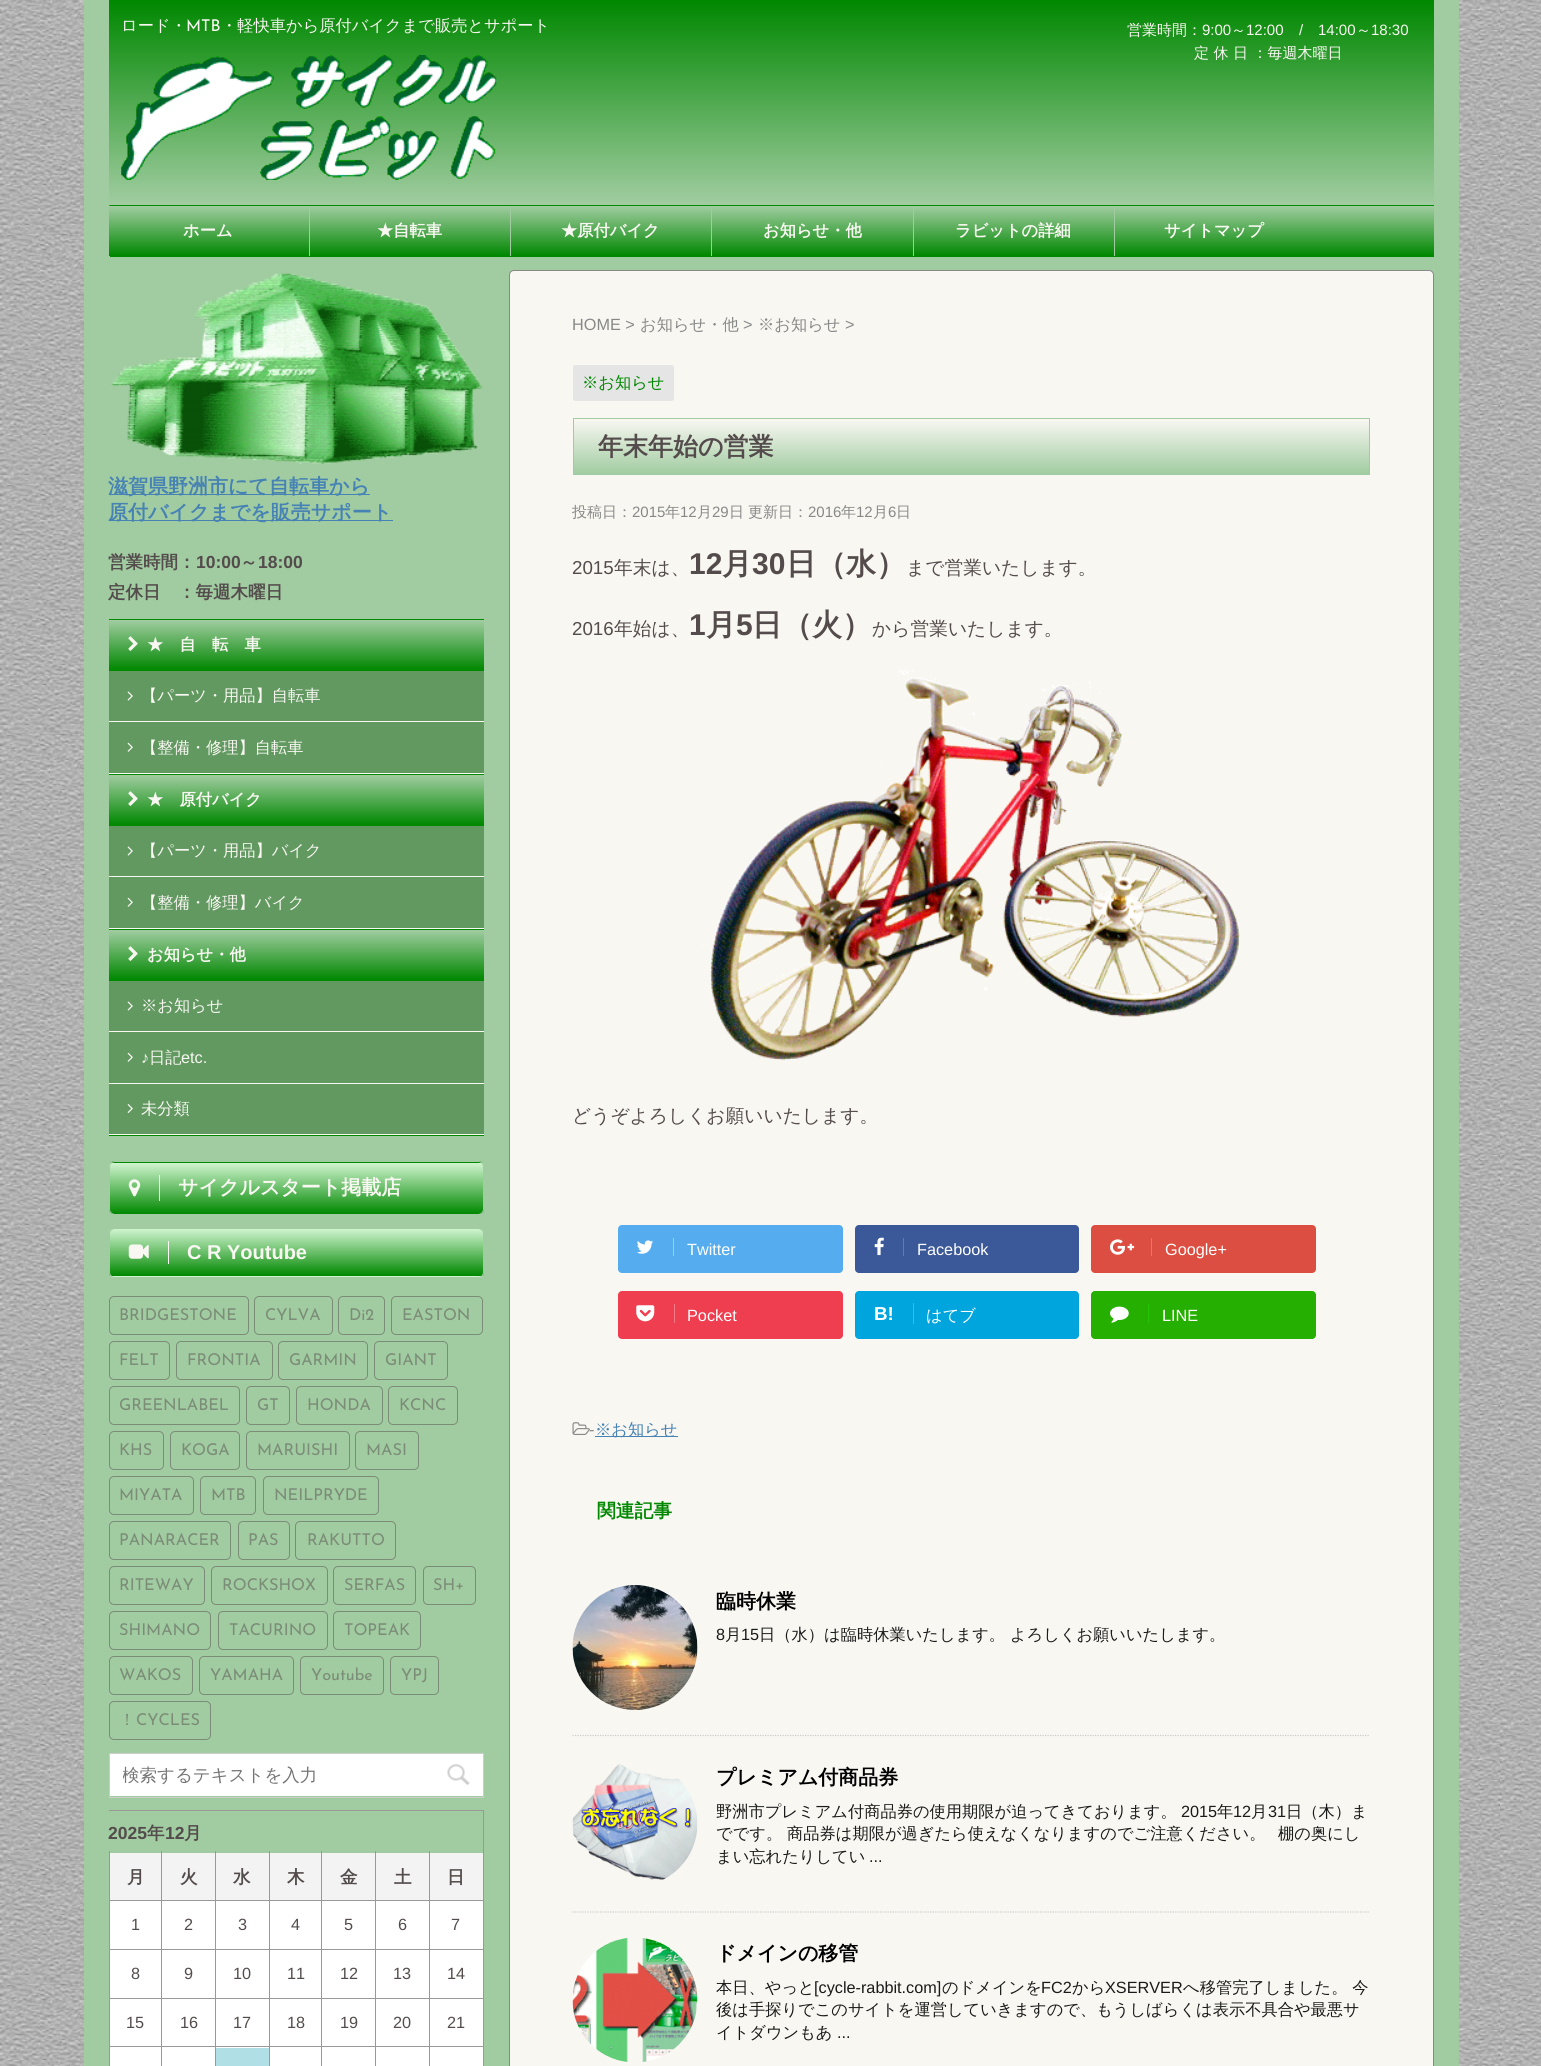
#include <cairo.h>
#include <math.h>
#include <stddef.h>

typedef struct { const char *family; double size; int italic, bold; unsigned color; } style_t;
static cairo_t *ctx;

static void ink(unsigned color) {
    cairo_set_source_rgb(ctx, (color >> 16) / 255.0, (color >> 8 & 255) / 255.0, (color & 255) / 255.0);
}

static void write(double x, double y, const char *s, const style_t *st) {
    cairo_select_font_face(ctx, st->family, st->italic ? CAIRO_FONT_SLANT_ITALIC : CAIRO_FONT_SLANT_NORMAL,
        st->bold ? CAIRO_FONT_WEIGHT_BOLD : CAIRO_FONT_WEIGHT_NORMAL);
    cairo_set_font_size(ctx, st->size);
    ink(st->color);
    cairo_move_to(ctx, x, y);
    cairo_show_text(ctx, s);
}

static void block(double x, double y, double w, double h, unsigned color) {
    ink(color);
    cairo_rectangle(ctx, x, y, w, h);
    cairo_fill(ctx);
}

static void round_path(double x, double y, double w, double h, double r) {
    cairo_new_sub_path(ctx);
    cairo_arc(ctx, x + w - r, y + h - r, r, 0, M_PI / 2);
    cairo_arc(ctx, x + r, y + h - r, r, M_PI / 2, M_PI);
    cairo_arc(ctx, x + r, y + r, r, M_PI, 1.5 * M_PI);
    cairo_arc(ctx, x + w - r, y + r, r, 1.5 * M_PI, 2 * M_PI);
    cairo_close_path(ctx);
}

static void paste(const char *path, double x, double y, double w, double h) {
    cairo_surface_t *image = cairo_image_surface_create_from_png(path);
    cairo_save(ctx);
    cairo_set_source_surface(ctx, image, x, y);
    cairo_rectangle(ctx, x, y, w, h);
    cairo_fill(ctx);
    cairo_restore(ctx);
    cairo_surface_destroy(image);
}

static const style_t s1 = {"WenQuanYi Zen Hei Medium", 16.25, 0, 0, 0xf9f7f2};
static const style_t s2 = {"Josefin Sans", 16.25, 0, 0, 0xf9f7f2};
static const style_t s3 = {"WenQuanYi Zen Hei Medium", 15, 0, 0, 0xf9f7f2};
static const style_t s4 = {"Liberation Sans", 15, 0, 0, 0xf9f7f2};
static const style_t s5 = {"WenQuanYi Zen Hei", 16.25, 0, 1, 0xf9f7f2};
static const style_t s6 = {"WenQuanYi Zen Hei", 20, 0, 1, 0x4682b4};
static const style_t s7 = {"WenQuanYi Zen Hei", 17.5, 0, 1, 0x544c4c};
static const style_t s8 = {"Liberation Sans", 17.5, 0, 1, 0x544c4c};
static const style_t s9 = {"Liberation Sans", 16.25, 0, 0, 0xf9f7f2};
static const style_t s10 = {"WenQuanYi Zen Hei", 20, 0, 1, 0xf9f7f2};
static const style_t s11 = {"Liberation Sans", 20, 0, 1, 0xf9f7f2};
static const style_t s12 = {"Josefin Sans", 16.25, 0, 0, 0x7b8c77};
static const style_t s13 = {"WenQuanYi Zen Hei Medium", 16.25, 0, 0, 0x7b8c77};
static const style_t s14 = {"WenQuanYi Zen Hei Medium", 17.5, 0, 0, 0x757575};
static const style_t s15 = {"Liberation Sans", 16.25, 0, 0, 0x544c4c};
static const style_t s16 = {"Liberation Sans", 16.25, 0, 0, 0x888888};
static const style_t s17 = {"WenQuanYi Zen Hei Medium", 16.25, 0, 0, 0x888888};
static const style_t s18 = {"WenQuanYi Zen Hei Medium", 16.25, 0, 0, 0x008800};
static const style_t s19 = {"WenQuanYi Zen Hei", 25, 0, 1, 0x544c4c};
static const style_t s20 = {"WenQuanYi Zen Hei Medium", 15, 0, 0, 0x888888};
static const style_t s21 = {"Liberation Sans", 15, 0, 0, 0x888888};
static const style_t s22 = {"Liberation Sans", 18.75, 0, 0, 0x544c4c};
static const style_t s23 = {"WenQuanYi Zen Hei Medium", 18.75, 0, 0, 0x544c4c};
static const style_t s24 = {"Liberation Sans", 30, 0, 1, 0x544c4c};
static const style_t s25 = {"WenQuanYi Zen Hei", 30, 0, 1, 0x544c4c};
static const style_t s26 = {"Liberation Sans", 16.25, 0, 0, 0xffffff};
static const style_t s27 = {"Liberation Sans", 18.75, 0, 1, 0xffffff};
static const style_t s28 = {"WenQuanYi Zen Hei Medium", 16.25, 0, 0, 0xffffff};
static const style_t s29 = {"WenQuanYi Zen Hei Medium", 16.25, 0, 0, 0x4682b4};
static const style_t s30 = {"WenQuanYi Zen Hei", 18.75, 0, 1, 0x008800};
static const style_t s31 = {"WenQuanYi Zen Hei", 20, 0, 1, 0x000000};
static const style_t s32 = {"Liberation Sans", 16.25, 0, 0, 0x1a1a1a};
static const style_t s33 = {"WenQuanYi Zen Hei Medium", 16.25, 0, 0, 0x1a1a1a};

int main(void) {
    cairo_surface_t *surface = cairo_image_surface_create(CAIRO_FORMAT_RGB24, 1541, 2066);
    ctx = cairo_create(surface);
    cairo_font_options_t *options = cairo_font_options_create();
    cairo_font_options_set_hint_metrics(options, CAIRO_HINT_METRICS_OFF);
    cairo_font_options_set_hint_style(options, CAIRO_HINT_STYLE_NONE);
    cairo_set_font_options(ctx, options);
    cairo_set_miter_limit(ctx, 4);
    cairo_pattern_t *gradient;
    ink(0xffffff);
    cairo_paint(ctx);
    paste("pic1.png", 0, 0, 1541, 2066);
    block(84, 0, 1375, 2066, 0xa1cca1);
    gradient = cairo_pattern_create_linear(771, 0, 771, 205);
    cairo_pattern_add_color_stop_rgba(gradient, 0, 0, 0.533, 0, 1);
    cairo_pattern_add_color_stop_rgba(gradient, 1, 0.631, 0.8, 0.631, 1);
    cairo_set_source(ctx, gradient);
    cairo_pattern_destroy(gradient);
    cairo_rectangle(ctx, 109, 0, 1325, 202);
    cairo_fill(ctx);
    write(121, 31, "ロード・", &s1);
    write(186, 31, "MTB", &s2);
    write(221, 31, "・軽快車から原付バイクまで販売とサポート", &s1);
    paste("pic2.png", 121, 55, 376, 125);
    write(1127, 35, "営業時間：", &s3);
    write(1202, 35, "9:00", &s4);
    write(1231, 35, "～", &s3);
    write(1246, 35, "12:00", &s4);
    write(1299, 35, "/", &s4);
    write(1318, 35, "14:00", &s4);
    write(1356, 35, "～", &s3);
    write(1371, 35, "18:30", &s4);
    write(1194, 58, "定 休 日 ：毎週木曜日", &s3);
    gradient = cairo_pattern_create_linear(771, 156, 771, 206);
    cairo_pattern_add_color_stop_rgba(gradient, 0, 0.631, 0.8, 0.631, 1);
    cairo_pattern_add_color_stop_rgba(gradient, 1, 0, 0.533, 0, 1);
    cairo_set_source(ctx, gradient);
    cairo_pattern_destroy(gradient);
    cairo_new_path(ctx);
    cairo_move_to(ctx, 110, 205);
    cairo_line_to(ctx, 1433, 205);
    cairo_curve_to(ctx, 1433.5, 205, 1434, 205.5, 1434, 206);
    cairo_line_to(ctx, 109, 206);
    cairo_curve_to(ctx, 109, 205.5, 109.5, 205, 110, 205);
    cairo_close_path(ctx);
    cairo_fill(ctx);
    gradient = cairo_pattern_create_linear(771, 206, 771, 256);
    cairo_pattern_add_color_stop_rgba(gradient, 0, 0.631, 0.8, 0.631, 1);
    cairo_pattern_add_color_stop_rgba(gradient, 1, 0, 0.533, 0, 1);
    cairo_set_source(ctx, gradient);
    cairo_pattern_destroy(gradient);
    cairo_rectangle(ctx, 109, 207, 1325, 49);
    cairo_fill(ctx);
    gradient = cairo_pattern_create_linear(771, 256, 771, 306);
    cairo_pattern_add_color_stop_rgba(gradient, 0, 0.631, 0.8, 0.631, 1);
    cairo_pattern_add_color_stop_rgba(gradient, 1, 0, 0.533, 0, 1);
    cairo_set_source(ctx, gradient);
    cairo_pattern_destroy(gradient);
    cairo_new_path(ctx);
    cairo_move_to(ctx, 109, 256);
    cairo_line_to(ctx, 1434, 256);
    cairo_line_to(ctx, 1434, 257);
    cairo_curve_to(ctx, 1434, 257.5, 1433.5, 258, 1433, 258);
    cairo_line_to(ctx, 110, 258);
    cairo_curve_to(ctx, 109.5, 258, 109, 257.5, 109, 257);
    cairo_close_path(ctx);
    cairo_fill(ctx);
    block(1433, 205, 1, 1, 0x008800);
    block(110, 256, 1324, 1, 0x008800);
    block(309, 206, 1, 50, 0xa1cca1);
    write(183, 236, "ホーム", &s5);
    block(510, 206, 1, 50, 0xa1cca1);
    write(377, 236, "★自転車", &s5);
    block(711, 206, 1, 50, 0xa1cca1);
    write(561, 236, "★原付バイク", &s5);
    block(913, 206, 1, 50, 0xa1cca1);
    write(763, 236, "お知らせ・他", &s5);
    block(1114, 206, 1, 50, 0xa1cca1);
    write(955, 236, "ラビットの詳細", &s5);
    write(1164, 236, "サイトマップ", &s5);
    paste("pic3.png", 111, 272, 372, 192);
    block(109, 494, 261, 1, 0x4682b4);
    write(108, 493, "滋賀県野洲市にて自転車から", &s6);
    block(109, 520, 284, 1, 0x4682b4);
    write(108, 519, "原付バイクまでを販売サポート", &s6);
    write(108, 568, "営業時間：", &s7);
    write(196, 568, "10:00", &s8);
    write(240, 568, "～", &s7);
    write(258, 568, "18:00", &s8);
    write(108, 598, "定休日　：毎週木曜日", &s7);
    block(109, 671, 375, 463, 0x619961);
    block(109, 619, 375, 1, 0x008800);
    gradient = cairo_pattern_create_linear(296, 620, 296, 670);
    cairo_pattern_add_color_stop_rgba(gradient, 0, 0.631, 0.8, 0.631, 1);
    cairo_pattern_add_color_stop_rgba(gradient, 1, 0, 0.533, 0, 1);
    cairo_set_source(ctx, gradient);
    cairo_pattern_destroy(gradient);
    cairo_rectangle(ctx, 109, 621, 375, 49);
    cairo_fill(ctx);
    paste("pic4.png", 128, 636, 10, 15);
    write(147, 650, "★　自　転　車", &s5);
    block(109, 670, 375, 1, 0x008800);
    block(109, 721, 375, 1, 0xf9f7f2);
    paste("pic5.png", 127, 691, 6, 10);
    write(141, 701, "【パーツ・用品】自転車", &s1);
    block(109, 773, 375, 1, 0xf9f7f2);
    paste("pic6.png", 127, 742, 6, 10);
    write(141, 753, "【整備・修理】自転車", &s1);
    block(109, 774, 375, 1, 0x008800);
    gradient = cairo_pattern_create_linear(296, 775, 296, 825);
    cairo_pattern_add_color_stop_rgba(gradient, 0, 0.631, 0.8, 0.631, 1);
    cairo_pattern_add_color_stop_rgba(gradient, 1, 0, 0.533, 0, 1);
    cairo_set_source(ctx, gradient);
    cairo_pattern_destroy(gradient);
    cairo_rectangle(ctx, 109, 775, 375, 50);
    cairo_fill(ctx);
    paste("pic4.png", 128, 791, 10, 15);
    write(147, 805, "★　原付バイク", &s5);
    block(109, 825, 375, 1, 0x008800);
    block(109, 876, 375, 1, 0xf9f7f2);
    paste("pic5.png", 127, 846, 6, 10);
    write(141, 856, "【パーツ・用品】バイク", &s1);
    block(109, 928, 375, 1, 0xf9f7f2);
    paste("pic6.png", 127, 897, 6, 10);
    write(141, 908, "【整備・修理】バイク", &s1);
    block(109, 929, 375, 1, 0x008800);
    block(109, 1135, 375, 1, 0x008800);
    gradient = cairo_pattern_create_linear(296, 930, 296, 980);
    cairo_pattern_add_color_stop_rgba(gradient, 0, 0.631, 0.8, 0.631, 1);
    cairo_pattern_add_color_stop_rgba(gradient, 1, 0, 0.533, 0, 1);
    cairo_set_source(ctx, gradient);
    cairo_pattern_destroy(gradient);
    cairo_rectangle(ctx, 109, 930, 375, 50);
    cairo_fill(ctx);
    paste("pic4.png", 128, 946, 10, 15);
    write(147, 960, "お知らせ・他", &s5);
    block(109, 980, 375, 1, 0x008800);
    block(109, 1031, 375, 1, 0xf9f7f2);
    paste("pic5.png", 127, 1001, 6, 10);
    write(141, 1011, "※お知らせ", &s1);
    block(109, 1083, 375, 1, 0xf9f7f2);
    paste("pic6.png", 127, 1052, 6, 10);
    write(141, 1063, "♪", &s9);
    write(149, 1063, "日記", &s1);
    write(181, 1063, "etc.", &s9);
    block(109, 1134, 375, 1, 0xf9f7f2);
    paste("pic7.png", 127, 1104, 6, 9);
    write(141, 1114, "未分類", &s1);
    cairo_save(ctx);
    round_path(109, 1161, 375, 54, 6);
    cairo_clip(ctx);
    gradient = cairo_pattern_create_linear(296, 1111, 296, 1163);
    cairo_pattern_add_color_stop_rgba(gradient, 0, 0.816, 0.957, 0.816, 1);
    cairo_pattern_add_color_stop_rgba(gradient, 1, 0, 0.533, 0, 1);
    cairo_set_source(ctx, gradient);
    cairo_pattern_destroy(gradient);
    cairo_rectangle(ctx, 109, 1161, 375, 2);
    cairo_fill(ctx);
    gradient = cairo_pattern_create_linear(296, 1163, 296, 1214);
    cairo_pattern_add_color_stop_rgba(gradient, 0, 0.816, 0.957, 0.816, 1);
    cairo_pattern_add_color_stop_rgba(gradient, 1, 0, 0.533, 0, 1);
    cairo_set_source(ctx, gradient);
    cairo_pattern_destroy(gradient);
    cairo_rectangle(ctx, 109, 1163, 375, 51);
    cairo_fill(ctx);
    cairo_restore(ctx);
    round_path(109.5, 1161.5, 374, 53, 5.5);
    ink(0xa1cca1);
    cairo_set_line_width(ctx, 1);
    cairo_stroke(ctx);
    paste("pic8.png", 128, 1179, 13, 18);
    block(159, 1175, 1, 26, 0xf9f7f2);
    write(178, 1194, "サイクルスタート掲載店", &s10);
    cairo_save(ctx);
    round_path(109, 1228, 375, 50, 6);
    cairo_clip(ctx);
    gradient = cairo_pattern_create_linear(296, 1229, 296, 1276);
    cairo_pattern_add_color_stop_rgba(gradient, 0, 0.816, 0.957, 0.816, 1);
    cairo_pattern_add_color_stop_rgba(gradient, 1, 0, 0.533, 0, 1);
    cairo_set_source(ctx, gradient);
    cairo_pattern_destroy(gradient);
    cairo_rectangle(ctx, 109, 1229, 375, 47);
    cairo_fill(ctx);
    gradient = cairo_pattern_create_linear(296, 1276, 296, 1324);
    cairo_pattern_add_color_stop_rgba(gradient, 0, 0.816, 0.957, 0.816, 1);
    cairo_pattern_add_color_stop_rgba(gradient, 1, 0, 0.533, 0, 1);
    cairo_set_source(ctx, gradient);
    cairo_pattern_destroy(gradient);
    cairo_rectangle(ctx, 109, 1276, 375, 2);
    cairo_fill(ctx);
    cairo_restore(ctx);
    round_path(109.5, 1228.5, 374, 49, 5.5);
    ink(0xa1cca1);
    cairo_stroke(ctx);
    paste("pic9.png", 128, 1244, 21, 15);
    block(168, 1241, 1, 23, 0xf9f7f2);
    write(187, 1259, "C R Youtube", &s11);
    round_path(109.5, 1296.5, 139, 38, 4.5);
    ink(0x7b8c77);
    cairo_stroke(ctx);
    write(119, 1320, "BRIDGESTONE", &s12);
    round_path(254.5, 1296.5, 78, 38, 4.5);
    cairo_stroke(ctx);
    write(265, 1320, "CYLVA", &s12);
    round_path(338.5, 1296.5, 46, 38, 4.5);
    cairo_stroke(ctx);
    write(349, 1320, "Di2", &s12);
    round_path(391.5, 1296.5, 91, 38, 4.5);
    cairo_stroke(ctx);
    write(402, 1320, "EASTON", &s12);
    round_path(109.5, 1341.5, 60, 38, 4.5);
    cairo_stroke(ctx);
    write(119, 1365, "FELT", &s12);
    round_path(176.5, 1341.5, 96, 38, 4.5);
    cairo_stroke(ctx);
    write(187, 1365, "FRONTIA", &s12);
    round_path(278.5, 1341.5, 89, 38, 4.5);
    cairo_stroke(ctx);
    write(289, 1365, "GARMIN", &s12);
    round_path(374.5, 1341.5, 73, 38, 4.5);
    cairo_stroke(ctx);
    write(385, 1365, "GIANT", &s12);
    round_path(109.5, 1386.5, 130, 38, 4.5);
    cairo_stroke(ctx);
    write(119, 1410, "GREENLABEL", &s12);
    round_path(246.5, 1386.5, 43, 38, 4.5);
    cairo_stroke(ctx);
    write(257, 1410, "GT", &s12);
    round_path(296.5, 1386.5, 86, 38, 4.5);
    cairo_stroke(ctx);
    write(307, 1410, "HONDA", &s12);
    round_path(388.5, 1386.5, 69, 38, 4.5);
    cairo_stroke(ctx);
    write(399, 1410, "KCNC", &s12);
    round_path(109.5, 1431.5, 54, 38, 4.5);
    cairo_stroke(ctx);
    write(119, 1455, "KHS", &s12);
    round_path(170.5, 1431.5, 69, 38, 4.5);
    cairo_stroke(ctx);
    write(181, 1455, "KOGA", &s12);
    round_path(246.5, 1431.5, 103, 38, 4.5);
    cairo_stroke(ctx);
    write(257, 1455, "MARUISHI", &s12);
    round_path(355.5, 1431.5, 63, 38, 4.5);
    cairo_stroke(ctx);
    write(366, 1455, "MASI", &s12);
    round_path(109.5, 1476.5, 84, 38, 4.5);
    cairo_stroke(ctx);
    write(119, 1500, "MIYATA", &s12);
    round_path(200.5, 1476.5, 55, 38, 4.5);
    cairo_stroke(ctx);
    write(211, 1500, "MTB", &s12);
    round_path(263.5, 1476.5, 115, 38, 4.5);
    cairo_stroke(ctx);
    write(274, 1500, "NEILPRYDE", &s12);
    round_path(109.5, 1521.5, 121, 38, 4.5);
    cairo_stroke(ctx);
    write(119, 1545, "PANARACER", &s12);
    round_path(238.5, 1521.5, 51, 38, 4.5);
    cairo_stroke(ctx);
    write(248, 1545, "PAS", &s12);
    round_path(295.5, 1521.5, 100, 38, 4.5);
    cairo_stroke(ctx);
    write(307, 1545, "RAKUTTO", &s12);
    round_path(109.5, 1566.5, 95, 38, 4.5);
    cairo_stroke(ctx);
    write(119, 1590, "RITEWAY", &s12);
    round_path(211.5, 1566.5, 116, 38, 4.5);
    cairo_stroke(ctx);
    write(222, 1590, "ROCKSHOX", &s12);
    round_path(333.5, 1566.5, 82, 38, 4.5);
    cairo_stroke(ctx);
    write(344, 1590, "SERFAS", &s12);
    round_path(423.5, 1566.5, 52, 38, 4.5);
    cairo_stroke(ctx);
    write(433, 1590, "SH+", &s12);
    round_path(109.5, 1611.5, 101, 38, 4.5);
    cairo_stroke(ctx);
    write(119, 1635, "SHIMANO", &s12);
    round_path(218.5, 1611.5, 109, 38, 4.5);
    cairo_stroke(ctx);
    write(229, 1635, "TACURINO", &s12);
    round_path(333.5, 1611.5, 87, 38, 4.5);
    cairo_stroke(ctx);
    write(344, 1635, "TOPEAK", &s12);
    round_path(109.5, 1656.5, 83, 38, 4.5);
    cairo_stroke(ctx);
    write(119, 1680, "WAKOS", &s12);
    round_path(199.5, 1656.5, 94, 38, 4.5);
    cairo_stroke(ctx);
    write(210, 1680, "YAMAHA", &s12);
    round_path(300.5, 1656.5, 83, 38, 4.5);
    cairo_stroke(ctx);
    write(311, 1680, "Youtube", &s12);
    round_path(390.5, 1656.5, 48, 38, 4.5);
    cairo_stroke(ctx);
    write(401, 1680, "YPJ", &s12);
    round_path(109.5, 1701.5, 101, 38, 4.5);
    cairo_stroke(ctx);
    write(119, 1725, "！", &s13);
    write(136, 1725, "CYCLES", &s12);
    cairo_rectangle(ctx, 109.5, 1753.5, 374, 44);
    ink(0xcccccc);
    cairo_stroke(ctx);
    block(110, 1754, 373, 42, 0xffffff);
    cairo_save(ctx);
    cairo_rectangle(ctx, 123, 1765, 278, 23);
    cairo_clip(ctx);
    write(122, 1781, "検索するテキストを入力", &s14);
    cairo_restore(ctx);
    paste("pic10.png", 447, 1764, 23, 21);
    block(109, 1810, 375, 1, 0x999999);
    block(483, 1810, 1, 256, 0x999999);
    write(108, 1839, "2025", &s8);
    write(147, 1839, "年", &s7);
    write(165, 1839, "12", &s8);
    write(184, 1839, "月", &s7);
    block(110, 1853, 105, 47, 0xf3f3f3);
    block(430, 1999, 53, 67, 0xffffff);
    block(429, 2046, 1, 20, 0x999999);
    block(429, 2046, 55, 1, 0x999999);
    block(429, 1998, 1, 50, 0x999999);
    block(429, 1998, 55, 1, 0x999999);
    block(429, 1949, 1, 50, 0x999999);
    block(429, 1949, 55, 1, 0x999999);
    block(429, 1900, 1, 50, 0x999999);
    block(429, 1900, 55, 1, 0x999999);
    block(429, 1851, 1, 50, 0x999999);
    block(376, 1999, 53, 67, 0xffffff);
    block(375, 2046, 1, 20, 0x999999);
    block(375, 2046, 55, 1, 0x999999);
    block(375, 1998, 1, 50, 0x999999);
    block(375, 1998, 55, 1, 0x999999);
    block(375, 1949, 1, 50, 0x999999);
    block(375, 1949, 55, 1, 0x999999);
    block(375, 1900, 1, 50, 0x999999);
    block(375, 1900, 55, 1, 0x999999);
    block(375, 1851, 1, 50, 0x999999);
    block(270, 1901, 105, 48, 0xffffff);
    block(270, 1950, 105, 48, 0xffffff);
    block(270, 1999, 105, 49, 0xffffff);
    block(270, 2048, 105, 18, 0xffffff);
    block(321, 2046, 1, 20, 0x999999);
    block(321, 2046, 55, 1, 0x999999);
    block(321, 1998, 1, 50, 0x999999);
    block(321, 1998, 55, 1, 0x999999);
    block(321, 1949, 1, 50, 0x999999);
    block(321, 1949, 55, 1, 0x999999);
    block(321, 1900, 1, 50, 0x999999);
    block(321, 1900, 55, 1, 0x999999);
    block(270, 1853, 105, 47, 0xf3f3f3);
    block(321, 1851, 1, 50, 0x999999);
    block(269, 2046, 1, 20, 0x999999);
    block(269, 2046, 54, 1, 0x999999);
    block(269, 1998, 1, 50, 0x999999);
    block(269, 1998, 54, 1, 0x999999);
    block(269, 1949, 1, 50, 0x999999);
    block(269, 1949, 54, 1, 0x999999);
    block(269, 1900, 1, 50, 0x999999);
    block(269, 1900, 54, 1, 0x999999);
    block(269, 1851, 1, 50, 0x999999);
    block(216, 1999, 53, 49, 0xffffff);
    block(215, 2046, 1, 20, 0x999999);
    block(215, 2046, 55, 1, 0x999999);
    block(215, 1998, 1, 50, 0x999999);
    block(215, 1998, 55, 1, 0x999999);
    block(215, 1949, 1, 50, 0x999999);
    block(215, 1949, 55, 1, 0x999999);
    block(215, 1900, 1, 50, 0x999999);
    block(215, 1900, 55, 1, 0x999999);
    block(215, 1851, 1, 50, 0x999999);
    block(110, 1901, 105, 48, 0xffffff);
    block(110, 1950, 105, 48, 0xffffff);
    block(110, 1999, 105, 49, 0xffffff);
    block(110, 2048, 105, 18, 0xffffff);
    block(161, 2046, 1, 20, 0x999999);
    block(161, 2046, 55, 1, 0x999999);
    block(161, 1998, 1, 50, 0x999999);
    block(161, 1998, 55, 1, 0x999999);
    block(161, 1949, 1, 50, 0x999999);
    block(161, 1949, 55, 1, 0x999999);
    block(161, 1900, 1, 50, 0x999999);
    block(161, 1900, 55, 1, 0x999999);
    block(161, 1851, 1, 50, 0x999999);
    block(109, 2046, 1, 20, 0x999999);
    block(109, 2046, 54, 1, 0x999999);
    block(109, 1998, 1, 50, 0x999999);
    block(109, 1998, 54, 1, 0x999999);
    block(109, 1949, 1, 50, 0x999999);
    block(109, 1949, 54, 1, 0x999999);
    block(109, 1900, 1, 50, 0x999999);
    block(109, 1900, 54, 1, 0x999999);
    block(109, 1851, 1, 50, 0x999999);
    write(127, 1883, "月", &s7);
    write(180, 1883, "火", &s7);
    block(216, 1853, 53, 47, 0xf3f3f3);
    write(233, 1883, "水", &s7);
    write(287, 1883, "木", &s7);
    write(340, 1883, "金", &s7);
    block(376, 1853, 53, 47, 0xf3f3f3);
    write(394, 1883, "土", &s7);
    block(430, 1853, 53, 47, 0xf3f3f3);
    write(447, 1883, "日", &s7);
    write(131, 1930, "1", &s15);
    write(184, 1930, "2", &s15);
    block(216, 1901, 53, 48, 0xffffff);
    write(238, 1930, "3", &s15);
    write(291, 1930, "4", &s15);
    write(344, 1930, "5", &s15);
    block(376, 1901, 53, 48, 0xffffff);
    write(398, 1930, "6", &s15);
    block(430, 1901, 53, 48, 0xffffff);
    write(451, 1930, "7", &s15);
    write(131, 1979, "8", &s15);
    write(184, 1979, "9", &s15);
    block(216, 1950, 53, 48, 0xffffff);
    write(233, 1979, "10", &s15);
    write(287, 1979, "11", &s15);
    write(340, 1979, "12", &s15);
    block(376, 1950, 53, 48, 0xffffff);
    write(393, 1979, "13", &s15);
    block(430, 1950, 53, 48, 0xffffff);
    write(447, 1979, "14", &s15);
    write(126, 2028, "15", &s15);
    write(180, 2028, "16", &s15);
    write(233, 2028, "17", &s15);
    write(287, 2028, "18", &s15);
    write(340, 2028, "19", &s15);
    write(393, 2028, "20", &s15);
    write(447, 2028, "21", &s15);
    block(216, 2048, 53, 18, 0xb0e0e6);
    ink(0xf9f7f2);
    round_path(509.5, 270.5, 924, 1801, 4.5);
    cairo_fill_preserve(ctx);
    ink(0x888888);
    cairo_stroke(ctx);
    write(572, 330, "HOME >", &s16);
    write(640, 330, "お知らせ・他", &s17);
    write(743, 330, ">", &s16);
    write(758, 330, "※お知らせ", &s17);
    write(845, 330, ">", &s16);
    ink(0xe5e5e5);
    round_path(573, 365, 101, 36, 2.5);
    cairo_fill(ctx);
    write(582, 388, "※お知らせ", &s18);
    gradient = cairo_pattern_create_linear(971, 419, 971, 474);
    cairo_pattern_add_color_stop_rgba(gradient, 0, 0.976, 0.969, 0.949, 1);
    cairo_pattern_add_color_stop_rgba(gradient, 1, 0.631, 0.8, 0.631, 1);
    cairo_set_source(ctx, gradient);
    cairo_pattern_destroy(gradient);
    cairo_rectangle(ctx, 574, 421, 795, 53);
    cairo_fill(ctx);
    cairo_rectangle(ctx, 573.5, 418.5, 796, 56);
    ink(0xa1cca1);
    cairo_stroke(ctx);
    write(598, 455, "年末年始の営業", &s19);
    write(572, 517, "投稿日：", &s20);
    write(632, 517, "2015", &s21);
    write(665, 517, "年", &s20);
    write(680, 517, "12", &s21);
    write(697, 517, "月", &s20);
    write(712, 517, "29", &s21);
    write(729, 517, "日", &s20);
    write(748, 517, "更新日：", &s20);
    write(808, 517, "2016", &s21);
    write(841, 517, "年", &s20);
    write(856, 517, "12", &s21);
    write(873, 517, "月", &s20);
    write(888, 517, "6", &s21);
    write(896, 517, "日", &s20);
    write(572, 574, "2015", &s22);
    write(614, 574, "年末は、", &s23);
    write(689, 574, "12", &s24);
    write(722, 574, "月", &s25);
    write(752, 574, "30", &s24);
    write(786, 574, "日（水）", &s25);
    write(906, 574, "まで営業いたします。", &s23);
    write(572, 635, "2016", &s22);
    write(614, 635, "年始は、", &s23);
    write(689, 635, "1", &s24);
    write(706, 635, "月", &s25);
    write(736, 635, "5", &s24);
    write(752, 635, "日（火）", &s25);
    write(872, 635, "から営業いたします。", &s23);
    paste("pic11.png", 701, 670, 539, 391);
    write(572, 1122, "どうぞよろしくお願いいたします。", &s23);
    ink(0x55acee);
    round_path(618, 1225, 225, 48, 4);
    cairo_fill(ctx);
    block(673, 1238, 1, 18, 0x9acff4);
    paste("pic12.png", 637, 1240, 16, 14);
    write(687, 1255, "Twitter", &s26);
    ink(0x3b5998);
    round_path(855, 1225, 224, 48, 4);
    cairo_fill(ctx);
    block(903, 1238, 1, 18, 0x607bb2);
    paste("pic13.png", 874, 1237, 10, 19);
    write(917, 1255, "Facebook", &s26);
    ink(0xdc4e41);
    round_path(1091, 1225, 225, 48, 4);
    cairo_fill(ctx);
    block(1151, 1238, 1, 18, 0xe0776d);
    paste("pic14.png", 1110, 1239, 25, 16);
    write(1165, 1255, "Google+", &s26);
    ink(0xf03e51);
    round_path(618, 1291, 225, 48, 4);
    cairo_fill(ctx);
    block(674, 1304, 1, 19, 0xf27985);
    paste("pic15.png", 636, 1305, 19, 17);
    write(687, 1321, "Pocket", &s26);
    ink(0x00a5de);
    round_path(855, 1291, 224, 48, 4);
    cairo_fill(ctx);
    write(874, 1320, "B!", &s27);
    block(913, 1303, 1, 21, 0x48b6db);
    write(926, 1321, "はてブ", &s28);
    ink(0x25af00);
    round_path(1091, 1291, 225, 48, 4);
    cairo_fill(ctx);
    block(1148, 1304, 1, 19, 0x29c200);
    paste("pic16.png", 1110, 1306, 19, 17);
    write(1162, 1321, "LINE", &s26);
    paste("pic17.png", 572, 1422, 18, 13);
    write(589, 1435, "-", &s16);
    block(595, 1436, 83, 1, 0x4682b4);
    write(595, 1435, "※お知らせ", &s29);
    write(597, 1517, "関連記事", &s30);
    cairo_new_path(ctx);
    cairo_move_to(ctx, 572.5, 1735.5);
    cairo_line_to(ctx, 1370, 1735.5);
    ink(0xcccccc);
    cairo_set_line_width(ctx, 1.2);
    cairo_set_dash(ctx, (double[]){1.25, 1.25}, 2, 0);
    cairo_stroke(ctx);
    paste("pic18.png", 572, 1585, 126, 125);
    write(716, 1608, "臨時休業", &s31);
    write(716, 1640, "8", &s32);
    write(725, 1640, "月", &s33);
    write(741, 1640, "15", &s32);
    write(759, 1640, "日（水）は臨時休業いたします。 よろしくお願いいたします。", &s33);
    cairo_new_path(ctx);
    cairo_move_to(ctx, 572.5, 1912);
    cairo_line_to(ctx, 1370, 1912);
    ink(0xcccccc);
    cairo_stroke(ctx);
    paste("pic19.png", 572, 1764, 126, 116);
    write(716, 1784, "プレミアム付商品券", &s31);
    write(716, 1817, "野洲市プレミアム付商品券の使用期限が迫ってきております。", &s33);
    write(1181, 1817, "2015", &s32);
    write(1217, 1817, "年", &s33);
    write(1233, 1817, "12", &s32);
    write(1251, 1817, "月", &s33);
    write(1268, 1817, "31", &s32);
    write(1286, 1817, "日（木）ま", &s33);
    write(716, 1839, "でです。 商品券は期限が過ぎたら使えなくなりますのでご注意ください。", &s33);
    write(1278, 1839, "棚の奥にし", &s33);
    write(716, 1862, "まい忘れたりしてい", &s33);
    write(869, 1862, "...", &s32);
    paste("pic20.png", 572, 1938, 126, 124);
    write(716, 1960, "ドメインの移管", &s31);
    write(716, 1993, "本日、やっと", &s33);
    write(814, 1993, "[cycle-rabbit.com]", &s32);
    write(942, 1993, "のドメインを", &s33);
    write(1041, 1993, "FC2", &s32);
    write(1072, 1993, "から", &s33);
    write(1105, 1993, "XSERVER", &s32);
    write(1183, 1993, "へ移管完了しました。 今", &s33);
    write(716, 2015, "後は手探りでこのサイトを運営していきますので、もうしばらくは表示不具合や最悪サ", &s33);
    write(716, 2038, "イトダウンもあ", &s33);
    write(837, 2038, "...", &s32);
    cairo_surface_write_to_png(surface, "screenshot.png");
    cairo_font_options_destroy(options);
    cairo_destroy(ctx);
    cairo_surface_destroy(surface);
    return 0;
}
